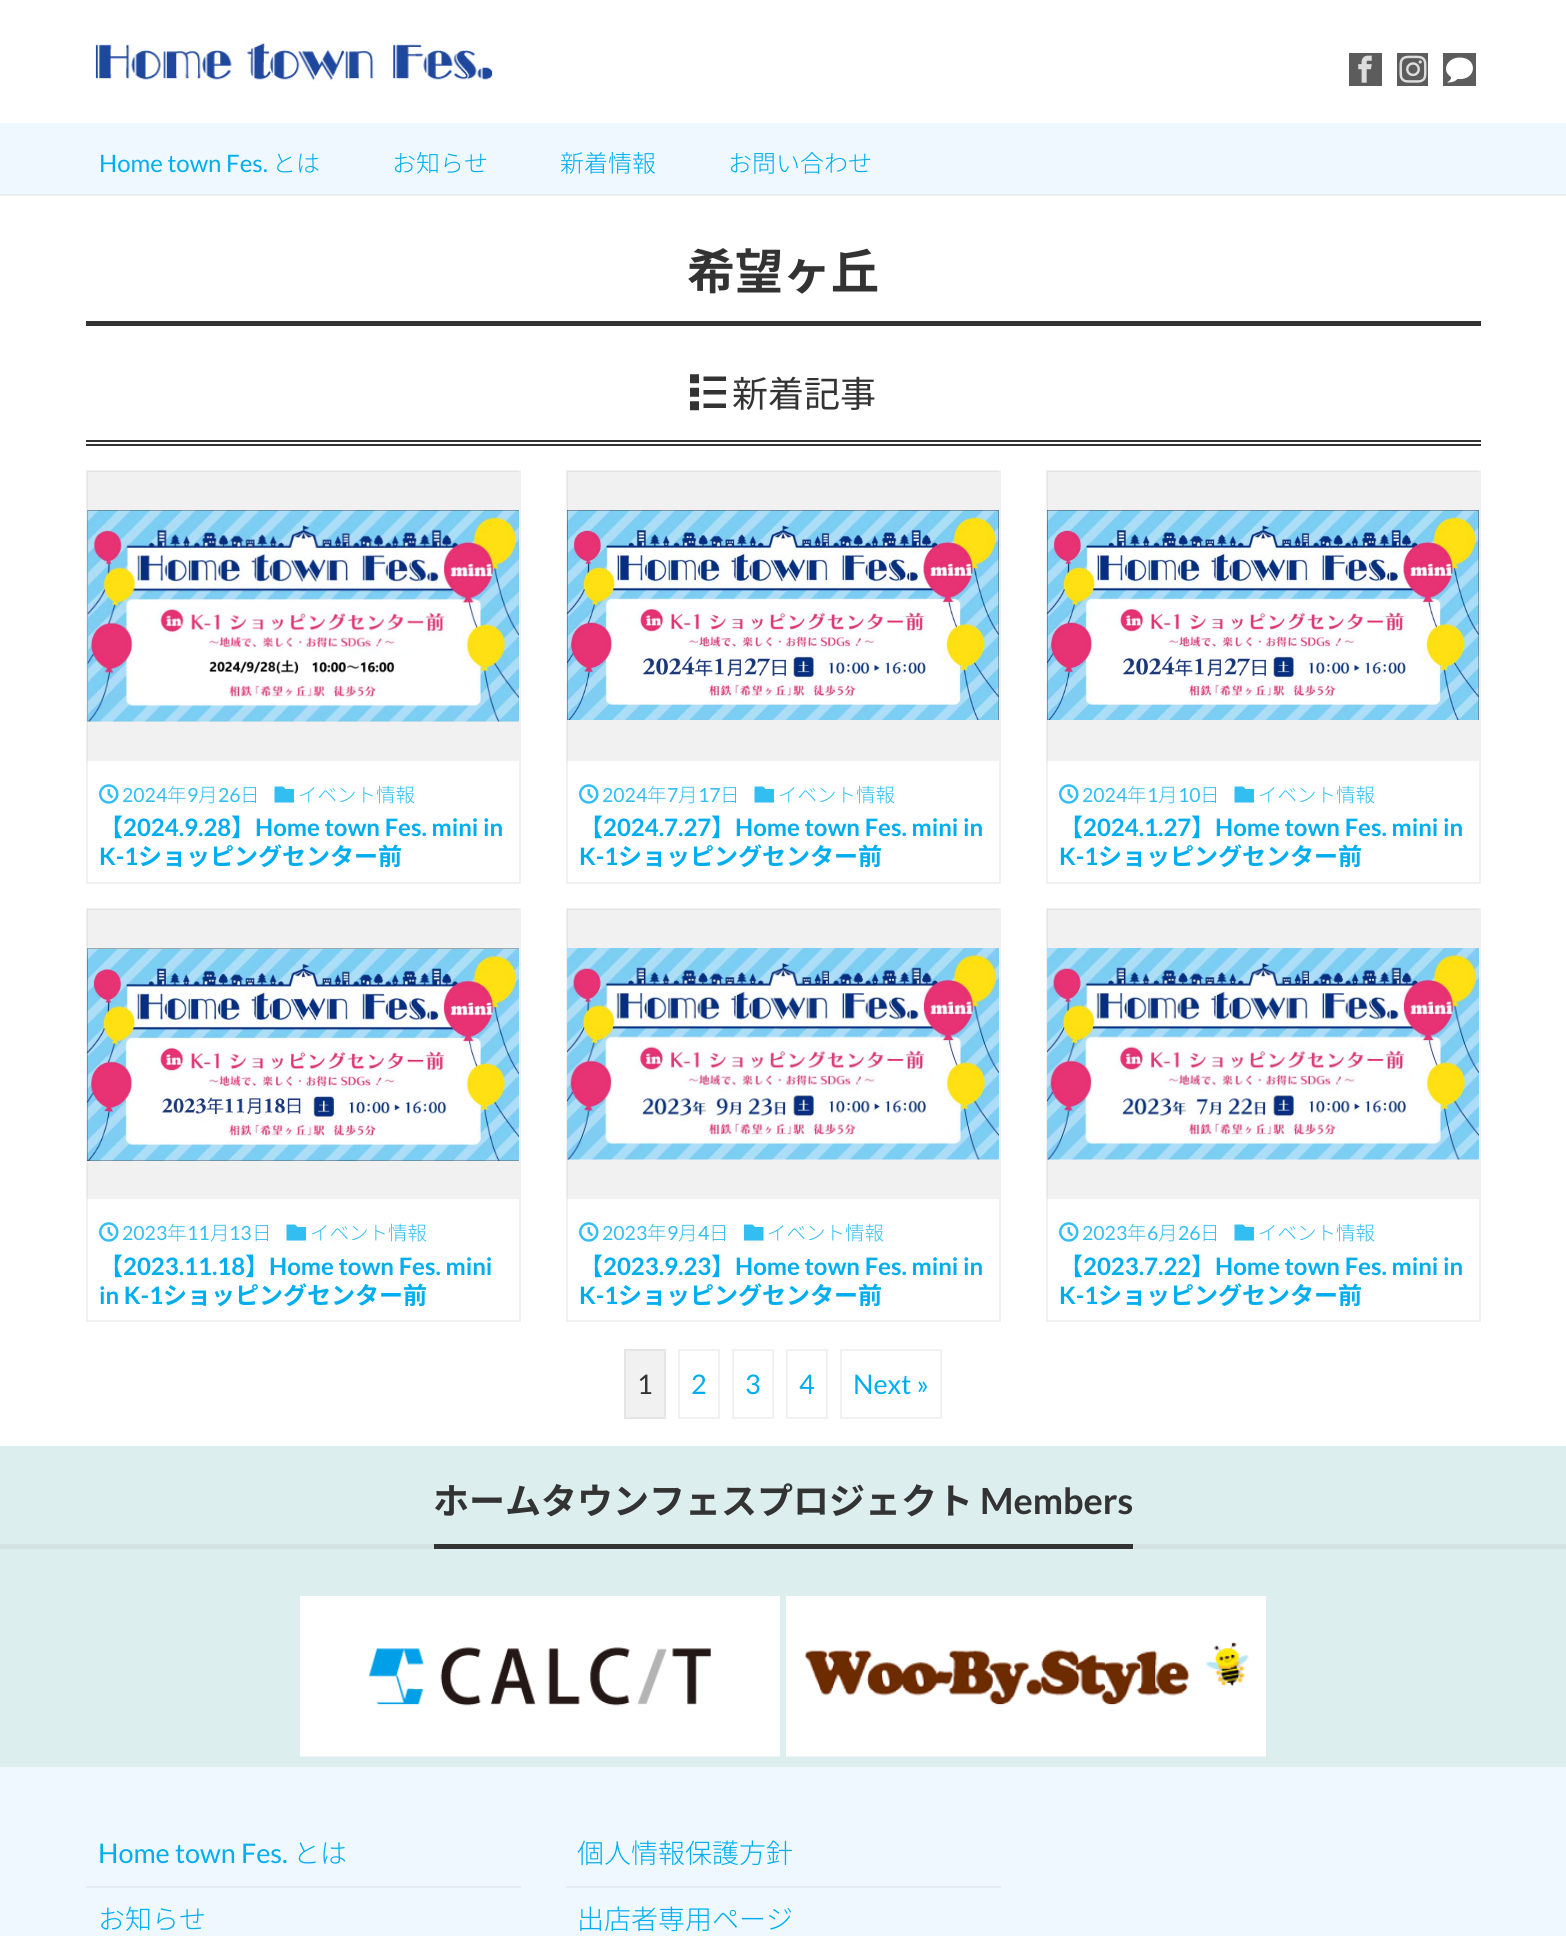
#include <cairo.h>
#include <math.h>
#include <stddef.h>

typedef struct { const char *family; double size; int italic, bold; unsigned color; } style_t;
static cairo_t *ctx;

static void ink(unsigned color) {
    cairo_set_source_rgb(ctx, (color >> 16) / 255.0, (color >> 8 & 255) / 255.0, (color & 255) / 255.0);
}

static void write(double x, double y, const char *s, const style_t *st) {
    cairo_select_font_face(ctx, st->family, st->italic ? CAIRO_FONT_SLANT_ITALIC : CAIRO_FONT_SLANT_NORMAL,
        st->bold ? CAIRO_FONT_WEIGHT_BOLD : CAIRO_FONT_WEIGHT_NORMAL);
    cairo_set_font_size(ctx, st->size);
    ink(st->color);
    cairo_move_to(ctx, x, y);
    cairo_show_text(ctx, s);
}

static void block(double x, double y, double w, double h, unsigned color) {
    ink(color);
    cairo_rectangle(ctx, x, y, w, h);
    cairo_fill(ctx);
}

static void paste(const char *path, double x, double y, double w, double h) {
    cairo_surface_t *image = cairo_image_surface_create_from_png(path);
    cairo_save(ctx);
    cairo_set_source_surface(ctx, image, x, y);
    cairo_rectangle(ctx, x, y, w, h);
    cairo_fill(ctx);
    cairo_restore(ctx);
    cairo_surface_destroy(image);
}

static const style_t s1 = {"Lato", 24, 0, 0, 0x00aeef};
static const style_t s2 = {"Noto Sans JP Light", 24, 0, 0, 0x00aeef};
static const style_t s3 = {"Noto Sans JP", 48, 0, 1, 0x333333};
static const style_t s4 = {"Noto Sans JP", 36, 0, 0, 0x333333};
static const style_t s5 = {"Lato", 19.5, 0, 0, 0x33bef2};
static const style_t s6 = {"Noto Sans JP Light", 19.5, 0, 0, 0x33bef2};
static const style_t s7 = {"Noto Sans JP", 24, 0, 1, 0x00aeef};
static const style_t s8 = {"Lato", 24, 0, 1, 0x00aeef};
static const style_t s9 = {"Lato", 27, 0, 0, 0x333333};
static const style_t s10 = {"Lato", 27, 0, 0, 0x00aeef};
static const style_t s11 = {"Noto Sans JP", 36, 0, 1, 0x333333};
static const style_t s12 = {"Lato", 36, 0, 1, 0x333333};
static const style_t s13 = {"Noto Sans JP Light", 27, 0, 0, 0x00aeef};

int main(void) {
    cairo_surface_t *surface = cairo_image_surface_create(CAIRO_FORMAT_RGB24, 1566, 1936);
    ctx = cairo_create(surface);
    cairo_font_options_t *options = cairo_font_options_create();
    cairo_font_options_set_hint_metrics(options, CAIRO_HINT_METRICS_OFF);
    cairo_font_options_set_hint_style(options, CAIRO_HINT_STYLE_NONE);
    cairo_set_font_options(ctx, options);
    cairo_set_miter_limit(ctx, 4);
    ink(0xffffff);
    cairo_paint(ctx);
    block(0, 195, 1566, 1, 0xf1f1f1);
    paste("pic1.png", 95, 42, 398, 39);
    block(1349, 53, 33, 33, 0x5c5c5c);
    paste("pic2.png", 1358, 55, 14, 28);
    block(1397, 53, 31, 33, 0x5c5c5c);
    paste("pic3.png", 1399, 55, 28, 28);
    block(1443, 53, 33, 33, 0x5c5c5c);
    ink(0xffffff);
    cairo_new_path(ctx);
    cairo_move_to(ctx, 1459.5, 57.5);
    cairo_curve_to(ctx, 1478.5, 57.5, 1477, 81, 1457.5, 79);
    cairo_curve_to(ctx, 1454.5, 82, 1451.5, 82.5, 1447.5, 82.5);
    cairo_line_to(ctx, 1447.5, 82);
    cairo_curve_to(ctx, 1449.5, 81, 1451.5, 79, 1451, 77);
    cairo_curve_to(ctx, 1440.5, 70, 1448, 57.5, 1459.5, 57.5);
    cairo_close_path(ctx);
    cairo_fill(ctx);
    block(0, 123, 1566, 71, 0xf0f8ff);
    block(0, 194, 1566, 1, 0xe4ebf1);
    write(99, 172, "Home town Fes.", &s1);
    write(272, 172, "とは", &s2);
    write(392, 172, "お知らせ", &s2);
    write(560, 172, "新着情報", &s2);
    write(728, 172, "お問い合わせ", &s2);
    block(86, 321, 1395, 5, 0x333333);
    write(687, 289, "希望ヶ丘", &s3);
    block(86, 440, 1395, 2, 0x333333);
    block(86, 444, 1395, 2, 0x333333);
    paste("pic4.png", 690, 374, 36, 37);
    write(732, 407, "新着記事", &s4);
    cairo_rectangle(ctx, 87, 471, 433, 412);
    ink(0xf1f1f1);
    cairo_stroke(ctx);
    cairo_set_source_rgba(ctx, 0.467, 0.467, 0.467, 0.1);
    cairo_rectangle(ctx, 87, 471, 432, 290);
    cairo_fill(ctx);
    paste("pic5.png", 87, 510, 432, 212);
    paste("pic6.png", 99, 784, 20, 20);
    write(122, 802, "2024", &s5);
    write(167, 802, "年", &s6);
    write(187, 802, "9", &s5);
    write(198, 802, "月", &s6);
    write(218, 802, "26", &s5);
    write(240, 802, "日", &s6);
    cairo_new_path(ctx);
    cairo_move_to(ctx, 283, 786.5);
    cairo_line_to(ctx, 285.5, 789);
    cairo_line_to(ctx, 294, 789);
    cairo_line_to(ctx, 294, 802.5);
    cairo_line_to(ctx, 274.5, 802.5);
    cairo_line_to(ctx, 274.5, 786.5);
    cairo_close_path(ctx);
    cairo_fill(ctx);
    write(298, 802, "イベント情報", &s6);
    write(99, 836, "【", &s7);
    write(123, 836, "2024.9.28", &s8);
    write(231, 836, "】", &s7);
    write(255, 836, "Home town Fes. mini in", &s8);
    write(99, 865, "K-1", &s8);
    write(138, 865, "ショッピングセンター前", &s7);
    cairo_rectangle(ctx, 567, 471, 433, 412);
    ink(0xf1f1f1);
    cairo_stroke(ctx);
    cairo_set_source_rgba(ctx, 0.467, 0.467, 0.467, 0.1);
    cairo_rectangle(ctx, 567, 471, 432, 290);
    cairo_fill(ctx);
    paste("pic7.png", 567, 510, 432, 210);
    paste("pic6.png", 579, 784, 20, 20);
    write(602, 802, "2024", &s5);
    write(647, 802, "年", &s6);
    write(667, 802, "7", &s5);
    write(678, 802, "月", &s6);
    write(698, 802, "17", &s5);
    write(720, 802, "日", &s6);
    cairo_new_path(ctx);
    cairo_move_to(ctx, 763, 786.5);
    cairo_line_to(ctx, 765.5, 789);
    cairo_line_to(ctx, 774, 789);
    cairo_line_to(ctx, 774, 802.5);
    cairo_line_to(ctx, 754.5, 802.5);
    cairo_line_to(ctx, 754.5, 786.5);
    cairo_close_path(ctx);
    cairo_fill(ctx);
    write(778, 802, "イベント情報", &s6);
    write(579, 836, "【", &s7);
    write(603, 836, "2024.7.27", &s8);
    write(711, 836, "】", &s7);
    write(735, 836, "Home town Fes. mini in", &s8);
    write(579, 865, "K-1", &s8);
    write(618, 865, "ショッピングセンター前", &s7);
    cairo_rectangle(ctx, 1047, 471, 433, 412);
    ink(0xf1f1f1);
    cairo_stroke(ctx);
    cairo_set_source_rgba(ctx, 0.467, 0.467, 0.467, 0.1);
    cairo_rectangle(ctx, 1047, 471, 432, 290);
    cairo_fill(ctx);
    paste("pic7.png", 1047, 510, 432, 210);
    paste("pic6.png", 1059, 784, 20, 20);
    write(1082, 802, "2024", &s5);
    write(1127, 802, "年", &s6);
    write(1147, 802, "1", &s5);
    write(1158, 802, "月", &s6);
    write(1178, 802, "10", &s5);
    write(1200, 802, "日", &s6);
    cairo_new_path(ctx);
    cairo_move_to(ctx, 1243, 786.5);
    cairo_line_to(ctx, 1245.5, 789);
    cairo_line_to(ctx, 1254, 789);
    cairo_line_to(ctx, 1254, 802.5);
    cairo_line_to(ctx, 1234.5, 802.5);
    cairo_line_to(ctx, 1234.5, 786.5);
    cairo_close_path(ctx);
    cairo_fill(ctx);
    write(1258, 802, "イベント情報", &s6);
    write(1059, 836, "【", &s7);
    write(1083, 836, "2024.1.27", &s8);
    write(1191, 836, "】", &s7);
    write(1215, 836, "Home town Fes. mini in", &s8);
    write(1059, 865, "K-1", &s8);
    write(1098, 865, "ショッピングセンター前", &s7);
    cairo_rectangle(ctx, 87, 909, 433, 412);
    ink(0xf1f1f1);
    cairo_stroke(ctx);
    cairo_set_source_rgba(ctx, 0.467, 0.467, 0.467, 0.1);
    cairo_rectangle(ctx, 87, 909, 432, 290);
    cairo_fill(ctx);
    paste("pic8.png", 87, 948, 432, 213);
    paste("pic6.png", 99, 1222, 20, 20);
    write(122, 1240, "2023", &s5);
    write(167, 1240, "年", &s6);
    write(187, 1240, "11", &s5);
    write(210, 1240, "月", &s6);
    write(229, 1240, "13", &s5);
    write(252, 1240, "日", &s6);
    cairo_new_path(ctx);
    cairo_move_to(ctx, 295, 1224.5);
    cairo_line_to(ctx, 297.5, 1227);
    cairo_line_to(ctx, 306, 1227);
    cairo_line_to(ctx, 306, 1240.5);
    cairo_line_to(ctx, 286.5, 1240.5);
    cairo_line_to(ctx, 286.5, 1224.5);
    cairo_close_path(ctx);
    cairo_fill(ctx);
    write(310, 1240, "イベント情報", &s6);
    write(99, 1275, "【", &s7);
    write(123, 1275, "2023.11.18", &s8);
    write(245, 1275, "】", &s7);
    write(269, 1275, "Home town Fes. mini", &s8);
    write(99, 1304, "in K-1", &s8);
    write(163, 1304, "ショッピングセンター前", &s7);
    cairo_rectangle(ctx, 567, 909, 433, 412);
    ink(0xf1f1f1);
    cairo_stroke(ctx);
    cairo_set_source_rgba(ctx, 0.467, 0.467, 0.467, 0.1);
    cairo_rectangle(ctx, 567, 909, 432, 290);
    cairo_fill(ctx);
    paste("pic9.png", 567, 948, 432, 212);
    paste("pic6.png", 579, 1222, 20, 20);
    write(602, 1240, "2023", &s5);
    write(647, 1240, "年", &s6);
    write(667, 1240, "9", &s5);
    write(678, 1240, "月", &s6);
    write(698, 1240, "4", &s5);
    write(709, 1240, "日", &s6);
    cairo_new_path(ctx);
    cairo_move_to(ctx, 752.5, 1224.5);
    cairo_line_to(ctx, 755, 1227);
    cairo_line_to(ctx, 763.5, 1227);
    cairo_line_to(ctx, 763.5, 1240.5);
    cairo_line_to(ctx, 744, 1240.5);
    cairo_line_to(ctx, 744, 1224.5);
    cairo_close_path(ctx);
    cairo_fill(ctx);
    write(767, 1240, "イベント情報", &s6);
    write(579, 1275, "【", &s7);
    write(603, 1275, "2023.9.23", &s8);
    write(711, 1275, "】", &s7);
    write(735, 1275, "Home town Fes. mini in", &s8);
    write(579, 1304, "K-1", &s8);
    write(618, 1304, "ショッピングセンター前", &s7);
    cairo_rectangle(ctx, 1047, 909, 433, 412);
    ink(0xf1f1f1);
    cairo_stroke(ctx);
    cairo_set_source_rgba(ctx, 0.467, 0.467, 0.467, 0.1);
    cairo_rectangle(ctx, 1047, 909, 432, 290);
    cairo_fill(ctx);
    paste("pic10.png", 1047, 948, 432, 212);
    paste("pic6.png", 1059, 1222, 20, 20);
    write(1082, 1240, "2023", &s5);
    write(1127, 1240, "年", &s6);
    write(1147, 1240, "6", &s5);
    write(1158, 1240, "月", &s6);
    write(1178, 1240, "26", &s5);
    write(1200, 1240, "日", &s6);
    cairo_new_path(ctx);
    cairo_move_to(ctx, 1243, 1224.5);
    cairo_line_to(ctx, 1245.5, 1227);
    cairo_line_to(ctx, 1254, 1227);
    cairo_line_to(ctx, 1254, 1240.5);
    cairo_line_to(ctx, 1234.5, 1240.5);
    cairo_line_to(ctx, 1234.5, 1224.5);
    cairo_close_path(ctx);
    cairo_fill(ctx);
    write(1258, 1240, "イベント情報", &s6);
    write(1059, 1275, "【", &s7);
    write(1083, 1275, "2023.7.22", &s8);
    write(1191, 1275, "】", &s7);
    write(1215, 1275, "Home town Fes. mini in", &s8);
    write(1059, 1304, "K-1", &s8);
    write(1098, 1304, "ショッピングセンター前", &s7);
    ink(0xf1f1f1);
    cairo_rectangle(ctx, 625, 1350, 40, 68);
    cairo_fill_preserve(ctx);
    ink(0xe5e5e5);
    cairo_stroke(ctx);
    write(637, 1394, "1", &s9);
    cairo_rectangle(ctx, 679, 1350, 40, 68);
    ink(0xf1f1f1);
    cairo_stroke(ctx);
    write(691, 1394, "2", &s10);
    cairo_rectangle(ctx, 733, 1350, 40, 68);
    ink(0xf1f1f1);
    cairo_stroke(ctx);
    write(745, 1394, "3", &s10);
    cairo_rectangle(ctx, 787, 1350, 40, 68);
    ink(0xf1f1f1);
    cairo_stroke(ctx);
    write(799, 1394, "4", &s10);
    cairo_rectangle(ctx, 841, 1350, 100, 68);
    ink(0xf1f1f1);
    cairo_stroke(ctx);
    write(853, 1394, "Next »", &s10);
    block(0, 1446, 1566, 321, 0xddeeee);
    block(0, 1544, 1566, 5, 0xd3e2e2);
    block(434, 1544, 699, 5, 0x333333);
    write(433, 1514, "ホームタウンフェスプロジェクト", &s11);
    write(980, 1514, "Members", &s12);
    paste("pic11.png", 300, 1596, 480, 161);
    paste("pic12.png", 786, 1596, 480, 161);
    block(0, 1767, 1566, 169, 0xf0f8ff);
    block(86, 1886, 435, 2, 0xe4ebf1);
    write(98, 1863, "Home town Fes.", &s10);
    write(293, 1863, "とは", &s13);
    write(98, 1929, "お知らせ", &s13);
    block(566, 1886, 435, 2, 0xe4ebf1);
    write(577, 1863, "個人情報保護方針", &s13);
    write(577, 1929, "出店者専用ページ", &s13);
    cairo_surface_write_to_png(surface, "screenshot.png");
    cairo_font_options_destroy(options);
    cairo_destroy(ctx);
    cairo_surface_destroy(surface);
    return 0;
}
